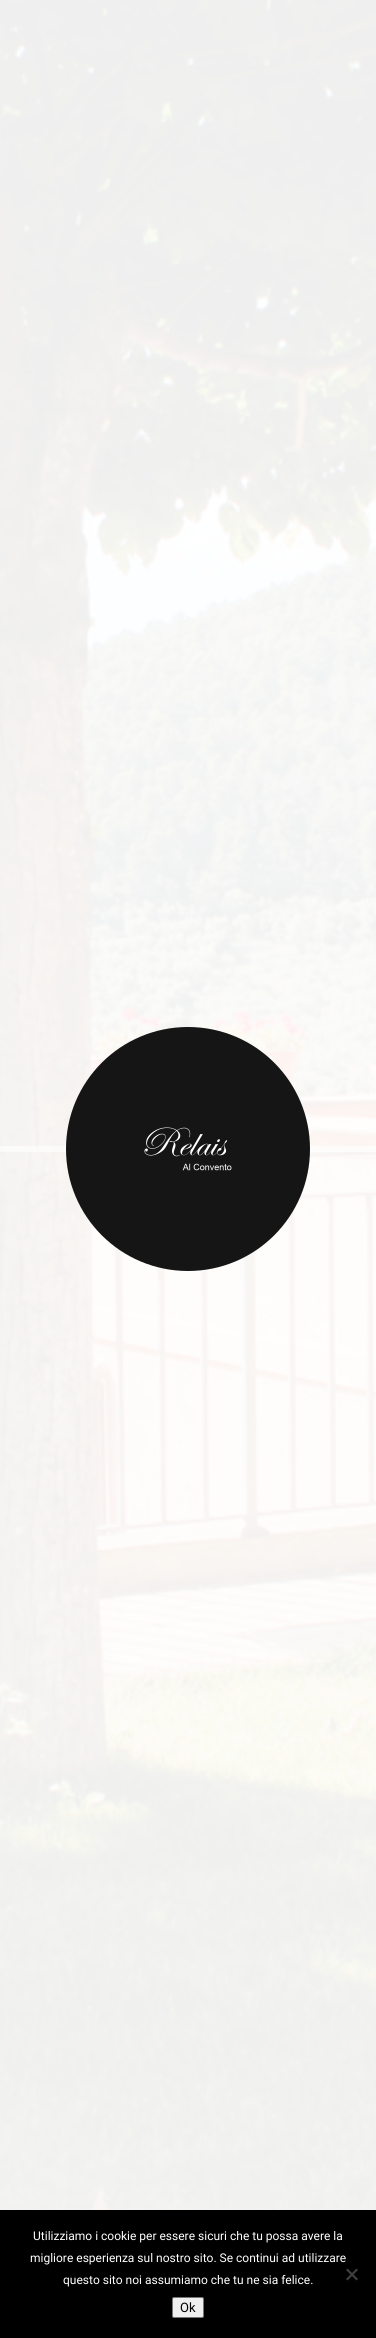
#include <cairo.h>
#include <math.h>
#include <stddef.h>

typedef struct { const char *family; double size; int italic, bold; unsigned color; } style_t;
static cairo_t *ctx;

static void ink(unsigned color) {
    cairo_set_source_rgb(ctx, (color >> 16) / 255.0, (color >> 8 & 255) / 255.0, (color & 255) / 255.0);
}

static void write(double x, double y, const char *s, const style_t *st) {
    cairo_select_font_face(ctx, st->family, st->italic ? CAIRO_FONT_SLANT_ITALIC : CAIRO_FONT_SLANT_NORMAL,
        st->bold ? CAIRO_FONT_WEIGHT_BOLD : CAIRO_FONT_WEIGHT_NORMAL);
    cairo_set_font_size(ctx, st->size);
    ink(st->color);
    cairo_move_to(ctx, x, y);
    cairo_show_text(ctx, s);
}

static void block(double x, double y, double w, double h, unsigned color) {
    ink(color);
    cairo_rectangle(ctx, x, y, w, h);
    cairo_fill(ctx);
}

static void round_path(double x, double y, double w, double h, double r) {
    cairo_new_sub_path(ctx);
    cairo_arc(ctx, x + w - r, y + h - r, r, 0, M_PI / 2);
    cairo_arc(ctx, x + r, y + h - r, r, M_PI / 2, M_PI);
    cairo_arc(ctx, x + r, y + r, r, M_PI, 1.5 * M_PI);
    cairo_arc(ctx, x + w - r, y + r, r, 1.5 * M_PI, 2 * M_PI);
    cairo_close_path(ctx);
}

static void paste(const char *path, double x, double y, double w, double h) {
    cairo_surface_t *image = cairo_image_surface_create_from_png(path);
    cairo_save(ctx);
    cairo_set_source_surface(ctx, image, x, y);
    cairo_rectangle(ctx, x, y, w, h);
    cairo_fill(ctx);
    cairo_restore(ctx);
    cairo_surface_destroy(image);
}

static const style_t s1 = {"Roboto", 12, 0, 0, 0xffffff};
static const style_t s2 = {"Roboto", 13, 0, 0, 0x000000};

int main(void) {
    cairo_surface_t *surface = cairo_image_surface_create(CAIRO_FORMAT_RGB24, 376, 2338);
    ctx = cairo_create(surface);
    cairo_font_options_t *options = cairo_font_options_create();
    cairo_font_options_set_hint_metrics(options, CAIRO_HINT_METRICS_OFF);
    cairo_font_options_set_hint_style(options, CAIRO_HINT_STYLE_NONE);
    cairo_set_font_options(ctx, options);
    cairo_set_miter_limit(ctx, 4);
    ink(0xffffff);
    cairo_paint(ctx);
    paste("pic1.png", 0, 0, 376, 2210);
    cairo_set_source_rgba(ctx, 1, 1, 1, 0.6);
    cairo_rectangle(ctx, 0, 1146, 376, 6);
    cairo_fill(ctx);
    ink(0x151516);
    cairo_arc(ctx, 188, 1149, 122, 0, 2 * M_PI);
    cairo_fill(ctx);
    paste("pic2.png", 144, 1127, 88, 44);
    block(0, 2210, 376, 128, 0x000000);
    write(33, 2240, "Utilizziamo i cookie per essere sicuri che tu possa avere la", &s1);
    write(30, 2262, "migliore esperienza sul nostro sito. Se continui ad utilizzare", &s1);
    write(63, 2284, "questo sito noi assumiamo che tu ne sia felice.", &s1);
    ink(0x404040);
    cairo_new_path(ctx);
    cairo_move_to(ctx, 356.5, 2268.5);
    cairo_line_to(ctx, 358, 2270);
    cairo_line_to(ctx, 347.5, 2280.5);
    cairo_line_to(ctx, 346, 2279);
    cairo_close_path(ctx);
    cairo_fill(ctx);
    cairo_new_path(ctx);
    cairo_move_to(ctx, 346, 2270);
    cairo_line_to(ctx, 347.5, 2268.5);
    cairo_line_to(ctx, 358, 2279);
    cairo_line_to(ctx, 356.5, 2280.5);
    cairo_close_path(ctx);
    cairo_fill(ctx);
    ink(0xefefef);
    round_path(172.5, 2297.5, 31, 20, 1.5);
    cairo_fill_preserve(ctx);
    ink(0x767676);
    cairo_set_line_width(ctx, 1);
    cairo_stroke(ctx);
    write(180, 2312, "Ok", &s2);
    cairo_surface_write_to_png(surface, "screenshot.png");
    cairo_font_options_destroy(options);
    cairo_destroy(ctx);
    cairo_surface_destroy(surface);
    return 0;
}
